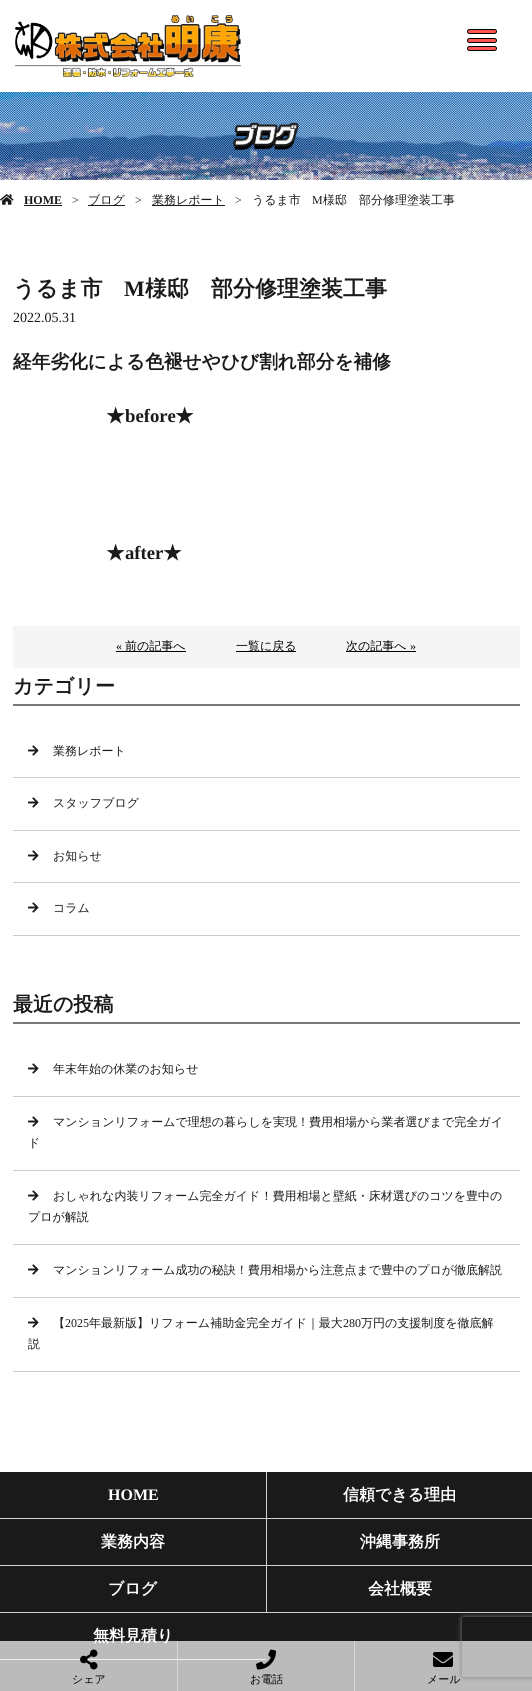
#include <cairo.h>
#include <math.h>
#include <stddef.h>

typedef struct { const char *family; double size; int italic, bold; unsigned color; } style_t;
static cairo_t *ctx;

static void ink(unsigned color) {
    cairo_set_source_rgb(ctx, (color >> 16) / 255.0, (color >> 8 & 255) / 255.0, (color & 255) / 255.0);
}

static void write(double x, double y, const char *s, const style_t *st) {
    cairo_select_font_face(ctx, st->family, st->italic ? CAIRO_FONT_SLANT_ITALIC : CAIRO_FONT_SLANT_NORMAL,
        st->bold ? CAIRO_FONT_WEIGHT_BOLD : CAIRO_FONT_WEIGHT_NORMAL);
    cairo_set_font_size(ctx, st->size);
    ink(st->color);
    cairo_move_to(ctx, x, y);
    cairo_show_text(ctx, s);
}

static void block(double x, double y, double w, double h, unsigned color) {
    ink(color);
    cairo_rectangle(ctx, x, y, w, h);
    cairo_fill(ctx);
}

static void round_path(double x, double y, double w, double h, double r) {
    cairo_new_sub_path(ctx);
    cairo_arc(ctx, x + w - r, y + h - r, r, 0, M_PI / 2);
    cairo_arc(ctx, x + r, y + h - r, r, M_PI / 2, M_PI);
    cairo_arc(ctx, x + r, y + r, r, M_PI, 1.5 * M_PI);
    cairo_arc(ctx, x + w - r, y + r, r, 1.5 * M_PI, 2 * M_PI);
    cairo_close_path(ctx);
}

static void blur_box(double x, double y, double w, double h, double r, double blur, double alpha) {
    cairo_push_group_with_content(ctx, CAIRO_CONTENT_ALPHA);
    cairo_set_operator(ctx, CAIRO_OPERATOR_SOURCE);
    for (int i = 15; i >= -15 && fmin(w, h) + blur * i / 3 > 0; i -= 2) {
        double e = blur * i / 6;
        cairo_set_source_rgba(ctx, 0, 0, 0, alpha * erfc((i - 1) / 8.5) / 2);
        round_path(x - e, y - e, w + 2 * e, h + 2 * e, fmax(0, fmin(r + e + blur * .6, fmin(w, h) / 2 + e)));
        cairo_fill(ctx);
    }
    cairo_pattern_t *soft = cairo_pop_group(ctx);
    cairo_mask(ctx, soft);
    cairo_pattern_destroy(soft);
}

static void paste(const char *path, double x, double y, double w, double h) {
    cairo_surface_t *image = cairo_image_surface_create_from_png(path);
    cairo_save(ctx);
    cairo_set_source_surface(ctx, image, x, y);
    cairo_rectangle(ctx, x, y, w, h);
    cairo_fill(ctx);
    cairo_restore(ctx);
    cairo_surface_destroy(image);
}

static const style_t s1 = {"Liberation Serif", 12, 0, 1, 0x1a1a1a};
static const style_t s2 = {"Liberation Serif", 12, 0, 0, 0x1a1a1a};
static const style_t s3 = {"WenQuanYi Zen Hei Medium", 12, 0, 0, 0x1a1a1a};
static const style_t s4 = {"WenQuanYi Zen Hei", 22, 0, 1, 0x1a1a1a};
static const style_t s5 = {"Liberation Serif", 22, 0, 1, 0x1a1a1a};
static const style_t s6 = {"Liberation Serif", 14, 0, 0, 0x1a1a1a};
static const style_t s7 = {"WenQuanYi Zen Hei", 18.7, 0, 1, 0x1a1a1a};
static const style_t s8 = {"Liberation Serif", 18.7, 0, 1, 0x1a1a1a};
static const style_t s9 = {"Liberation Serif", 12, 0, 0, 0x000000};
static const style_t s10 = {"WenQuanYi Zen Hei Medium", 12, 0, 0, 0x000000};
static const style_t s11 = {"WenQuanYi Zen Hei", 20, 0, 1, 0x1a1a1a};
static const style_t s12 = {"Liberation Serif", 16, 0, 1, 0xffffff};
static const style_t s13 = {"WenQuanYi Zen Hei", 16, 0, 1, 0xffffff};
static const style_t s14 = {"WenQuanYi Zen Hei Medium", 11, 0, 0, 0x000000};

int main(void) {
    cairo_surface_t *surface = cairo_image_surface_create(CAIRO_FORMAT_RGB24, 532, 1691);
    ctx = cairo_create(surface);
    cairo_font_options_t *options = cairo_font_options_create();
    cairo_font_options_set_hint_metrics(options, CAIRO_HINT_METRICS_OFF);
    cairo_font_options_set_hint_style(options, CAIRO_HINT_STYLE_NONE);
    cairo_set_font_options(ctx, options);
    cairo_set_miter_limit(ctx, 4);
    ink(0xffffff);
    cairo_paint(ctx);
    ink(0xff544f);
    round_path(467.5, 29.5, 29, 4, 2);
    cairo_fill_preserve(ctx);
    ink(0x000000);
    cairo_set_line_width(ctx, 1);
    cairo_stroke(ctx);
    ink(0xff544f);
    round_path(467.5, 38.5, 29, 4, 2);
    cairo_fill_preserve(ctx);
    ink(0x000000);
    cairo_stroke(ctx);
    ink(0xff544f);
    round_path(467.5, 46.5, 29, 4, 2);
    cairo_fill_preserve(ctx);
    ink(0x000000);
    cairo_stroke(ctx);
    paste("pic1.png", 15, 15, 226, 62);
    paste("pic2.png", 0, 92, 532, 88);
    paste("pic3.png", 233, 122, 67, 28);
    paste("pic4.png", 0, 194, 14, 11);
    write(24, 204, "HOME", &s1);
    block(24, 205, 38, 1, 0x1a1a1a);
    write(72, 204, ">", &s2);
    block(88, 205, 37, 1, 0x1a1a1a);
    write(88, 204, "ブログ", &s3);
    write(135, 204, ">", &s2);
    block(152, 205, 73, 1, 0x1a1a1a);
    write(152, 204, "業務レポート", &s3);
    write(235, 204, ">", &s2);
    write(252, 204, "うるま市", &s3);
    write(312, 204, "M", &s2);
    write(323, 204, "様邸　部分修理塗装工事", &s3);
    write(13, 296, "うるま市", &s4);
    write(124, 296, "M", &s5);
    write(145, 296, "様邸　部分修理塗装工事", &s4);
    write(13, 322, "2022.05.31", &s6);
    cairo_save(ctx);
    cairo_rectangle(ctx, 13, 345, 507, 266);
    cairo_clip(ctx);
    write(13, 368, "経年劣化による色褪せやひび割れ部分を補修", &s7);
    cairo_restore(ctx);
    write(106, 422, "★", &s7);
    write(125, 422, "before", &s8);
    write(175, 422, "★", &s7);
    write(106, 559, "★", &s7);
    write(125, 559, "after", &s8);
    write(163, 559, "★", &s7);
    block(13, 626, 507, 42, 0xf5f5f5);
    write(116, 650, "«", &s9);
    block(116, 651, 70, 1, 0x000000);
    write(125, 650, "前の記事へ", &s10);
    block(236, 651, 60, 1, 0x000000);
    write(236, 650, "一覧に戻る", &s10);
    block(346, 651, 70, 1, 0x000000);
    write(346, 650, "次の記事へ", &s10);
    write(410, 650, "»", &s9);
    block(13, 704, 507, 2, 0x777777);
    write(13, 693, "カテゴリー", &s11);
    block(13, 777, 507, 1, 0xcccccc);
    paste("pic5.png", 28, 745, 11, 11);
    write(53, 755, "業務レポート", &s3);
    block(13, 830, 507, 1, 0xcccccc);
    paste("pic5.png", 28, 797, 11, 11);
    write(53, 807, "スタッフブログ", &s3);
    block(13, 882, 507, 1, 0xcccccc);
    paste("pic5.png", 28, 850, 11, 11);
    write(53, 860, "お知らせ", &s3);
    block(13, 935, 507, 1, 0xcccccc);
    paste("pic5.png", 28, 902, 11, 11);
    write(53, 912, "コラム", &s3);
    block(13, 1022, 507, 2, 0x777777);
    write(13, 1011, "最近の投稿", &s11);
    block(13, 1096, 507, 1, 0xcccccc);
    paste("pic5.png", 28, 1063, 11, 11);
    write(53, 1073, "年末年始の休業のお知らせ", &s3);
    block(13, 1170, 507, 1, 0xcccccc);
    paste("pic5.png", 28, 1116, 11, 11);
    write(53, 1126, "マンションリフォームで理想の暮らしを実現！費用相場から業者選びまで完全ガイ", &s3);
    write(28, 1147, "ド", &s3);
    block(13, 1244, 507, 1, 0xcccccc);
    paste("pic5.png", 28, 1190, 11, 11);
    write(53, 1200, "おしゃれな内装リフォーム完全ガイド！費用相場と壁紙・床材選びのコツを豊中の", &s3);
    write(28, 1221, "プロが解説", &s3);
    block(13, 1297, 507, 1, 0xcccccc);
    paste("pic5.png", 28, 1264, 11, 11);
    write(53, 1274, "マンションリフォーム成功の秘訣！費用相場から注意点まで豊中のプロが徹底解説", &s3);
    block(13, 1371, 507, 1, 0xcccccc);
    paste("pic5.png", 28, 1317, 11, 11);
    write(53, 1327, "【", &s3);
    write(65, 1327, "2025", &s2);
    write(89, 1327, "年最新版】リフォーム補助金完全ガイド｜最大", &s3);
    write(343, 1327, "280", &s2);
    write(361, 1327, "万円の支援制度を徹底解", &s3);
    write(28, 1348, "説", &s3);
    block(0, 1472, 532, 219, 0x1a1a1a);
    block(0, 1518, 532, 1, 0xd1d1d1);
    write(108, 1500, "HOME", &s12);
    block(266, 1472, 1, 47, 0xd1d1d1);
    write(343, 1500, "信頼できる理由", &s13);
    block(0, 1565, 532, 1, 0xd1d1d1);
    write(101, 1547, "業務内容", &s13);
    block(266, 1519, 1, 47, 0xd1d1d1);
    write(360, 1547, "沖縄事務所", &s13);
    block(0, 1612, 532, 1, 0xd1d1d1);
    write(108, 1594, "ブログ", &s13);
    block(266, 1566, 1, 47, 0xd1d1d1);
    write(368, 1594, "会社概要", &s13);
    block(0, 1659, 266, 1, 0xd1d1d1);
    write(93, 1641, "無料見積り", &s13);
    cairo_set_source_rgba(ctx, 1, 1, 1, 0.7);
    cairo_rectangle(ctx, 0, 1641, 532, 50);
    cairo_fill(ctx);
    cairo_save(ctx);
    cairo_set_fill_rule(ctx, CAIRO_FILL_RULE_EVEN_ODD);
    cairo_new_path(ctx);
    cairo_move_to(ctx, 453, 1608);
    cairo_line_to(ctx, 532, 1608);
    cairo_line_to(ctx, 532, 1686);
    cairo_line_to(ctx, 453, 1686);
    cairo_close_path(ctx);
    cairo_move_to(ctx, 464, 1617);
    cairo_line_to(ctx, 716, 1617);
    cairo_curve_to(ctx, 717, 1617, 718, 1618, 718, 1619);
    cairo_line_to(ctx, 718, 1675);
    cairo_curve_to(ctx, 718, 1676, 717, 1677, 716, 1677);
    cairo_line_to(ctx, 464, 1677);
    cairo_curve_to(ctx, 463, 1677, 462, 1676, 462, 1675);
    cairo_line_to(ctx, 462, 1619);
    cairo_curve_to(ctx, 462, 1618, 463, 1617, 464, 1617);
    cairo_close_path(ctx);
    cairo_clip(ctx);
    ink(0x808080);
    blur_box(462, 1617, 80, 60, 2, 2.5, 1);
    cairo_restore(ctx);
    paste("pic6.png", 80, 1649, 18, 21);
    write(72, 1683, "シェア", &s14);
    block(177, 1641, 1, 50, 0xd8d8d8);
    paste("pic7.png", 256, 1649, 20, 21);
    write(250, 1683, "お電話", &s14);
    block(354, 1641, 1, 50, 0xd8d8d8);
    paste("pic8.png", 433, 1652, 20, 15);
    write(427, 1683, "メール", &s14);
    cairo_surface_write_to_png(surface, "screenshot.png");
    cairo_font_options_destroy(options);
    cairo_destroy(ctx);
    cairo_surface_destroy(surface);
    return 0;
}
